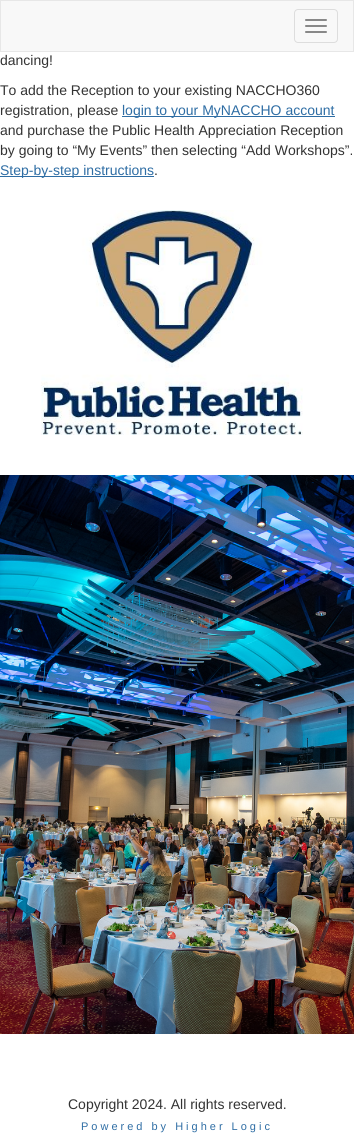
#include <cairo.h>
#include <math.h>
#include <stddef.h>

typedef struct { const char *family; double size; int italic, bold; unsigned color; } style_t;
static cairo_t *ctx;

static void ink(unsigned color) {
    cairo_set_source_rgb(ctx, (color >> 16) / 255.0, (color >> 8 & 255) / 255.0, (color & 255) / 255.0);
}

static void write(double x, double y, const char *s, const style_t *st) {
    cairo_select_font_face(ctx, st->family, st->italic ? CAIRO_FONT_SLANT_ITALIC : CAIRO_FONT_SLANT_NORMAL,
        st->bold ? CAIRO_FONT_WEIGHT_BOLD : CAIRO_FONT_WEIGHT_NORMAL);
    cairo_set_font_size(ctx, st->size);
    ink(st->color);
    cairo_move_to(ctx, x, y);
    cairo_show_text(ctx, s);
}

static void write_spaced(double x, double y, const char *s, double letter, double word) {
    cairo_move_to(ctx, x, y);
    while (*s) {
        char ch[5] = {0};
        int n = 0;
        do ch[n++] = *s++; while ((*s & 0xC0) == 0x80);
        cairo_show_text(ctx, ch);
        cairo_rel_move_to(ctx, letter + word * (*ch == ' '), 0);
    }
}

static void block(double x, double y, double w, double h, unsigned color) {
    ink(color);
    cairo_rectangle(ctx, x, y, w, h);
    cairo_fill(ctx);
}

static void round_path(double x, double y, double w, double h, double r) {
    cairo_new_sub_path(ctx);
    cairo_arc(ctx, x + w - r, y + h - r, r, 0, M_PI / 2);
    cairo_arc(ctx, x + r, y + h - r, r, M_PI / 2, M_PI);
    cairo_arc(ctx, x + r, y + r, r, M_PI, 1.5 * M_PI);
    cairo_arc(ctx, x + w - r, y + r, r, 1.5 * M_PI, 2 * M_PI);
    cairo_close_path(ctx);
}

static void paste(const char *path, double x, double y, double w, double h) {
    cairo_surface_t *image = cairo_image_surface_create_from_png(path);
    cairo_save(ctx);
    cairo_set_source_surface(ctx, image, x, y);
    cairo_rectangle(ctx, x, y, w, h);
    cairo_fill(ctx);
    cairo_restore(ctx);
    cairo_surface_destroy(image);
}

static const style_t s1 = {"Liberation Sans", 14, 0, 0, 0x333333};
static const style_t s2 = {"Liberation Sans", 14, 0, 0, 0x2e6da4};

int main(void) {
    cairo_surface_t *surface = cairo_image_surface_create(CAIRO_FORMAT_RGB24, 354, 1135);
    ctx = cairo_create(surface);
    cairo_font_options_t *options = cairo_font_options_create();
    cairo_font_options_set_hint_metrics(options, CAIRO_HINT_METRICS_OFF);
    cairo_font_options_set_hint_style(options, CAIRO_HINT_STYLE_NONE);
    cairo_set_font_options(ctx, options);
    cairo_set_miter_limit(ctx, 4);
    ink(0xffffff);
    cairo_paint(ctx);
    ink(0xf8f8f8);
    cairo_rectangle(ctx, 0.5, 0.5, 353, 51);
    cairo_fill_preserve(ctx);
    ink(0xe7e7e7);
    cairo_set_line_width(ctx, 1);
    cairo_stroke(ctx);
    round_path(294.5, 9.5, 43, 33, 3.5);
    ink(0xdddddd);
    cairo_stroke(ctx);
    ink(0x888888);
    round_path(305, 19, 22, 2, 1);
    cairo_fill(ctx);
    round_path(305, 25, 22, 2, 1);
    cairo_fill(ctx);
    round_path(305, 31, 22, 2, 1);
    cairo_fill(ctx);
    write(0, 65, "dancing!", &s1);
    write(0, 95, "To add the Reception to your existing NACCHO360", &s1);
    write(0, 115, "registration, please", &s1);
    block(122, 116, 213, 1, 0x2e6da4);
    write(122, 115, "login to your MyNACCHO account", &s2);
    write(0, 135, "and purchase the Public Health Appreciation Reception", &s1);
    write(0, 155, "by going to “My Events” then selecting “Add Workshops”.", &s1);
    block(0, 176, 154, 1, 0x2e6da4);
    write(0, 175, "Step-by-step instructions", &s2);
    write(154, 175, ".", &s1);
    paste("pic1.png", 41, 210, 262, 225);
    paste("pic2.png", 0, 475, 354, 559);
    write(68, 1109, "Copyright 2024. All rights reserved.", &s1);
    cairo_set_font_size(ctx, 11);
    ink(0x2e6da4);
    write_spaced(81, 1130, "Powered by Higher Logic", 3, 0);
    cairo_surface_write_to_png(surface, "screenshot.png");
    cairo_font_options_destroy(options);
    cairo_destroy(ctx);
    cairo_surface_destroy(surface);
    return 0;
}
